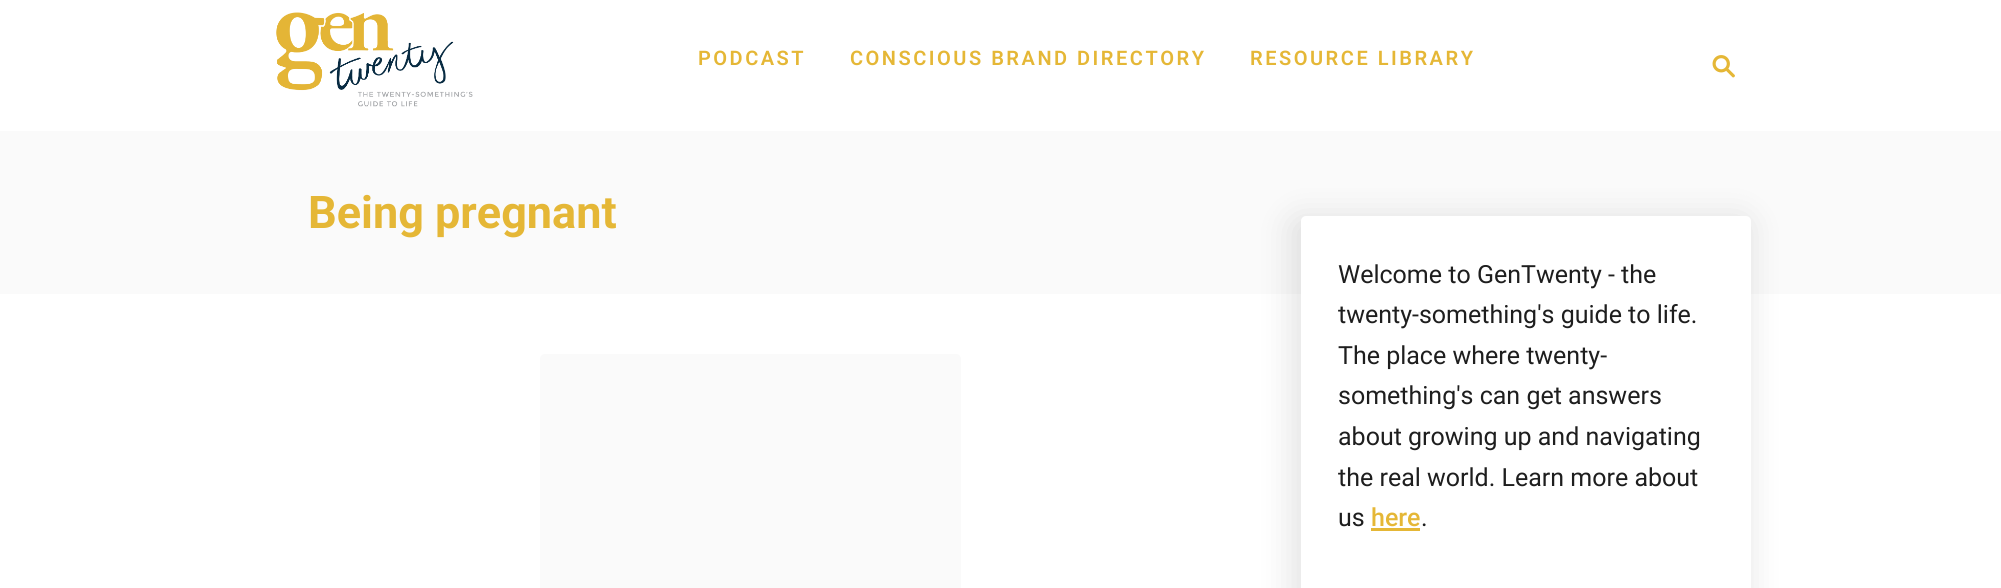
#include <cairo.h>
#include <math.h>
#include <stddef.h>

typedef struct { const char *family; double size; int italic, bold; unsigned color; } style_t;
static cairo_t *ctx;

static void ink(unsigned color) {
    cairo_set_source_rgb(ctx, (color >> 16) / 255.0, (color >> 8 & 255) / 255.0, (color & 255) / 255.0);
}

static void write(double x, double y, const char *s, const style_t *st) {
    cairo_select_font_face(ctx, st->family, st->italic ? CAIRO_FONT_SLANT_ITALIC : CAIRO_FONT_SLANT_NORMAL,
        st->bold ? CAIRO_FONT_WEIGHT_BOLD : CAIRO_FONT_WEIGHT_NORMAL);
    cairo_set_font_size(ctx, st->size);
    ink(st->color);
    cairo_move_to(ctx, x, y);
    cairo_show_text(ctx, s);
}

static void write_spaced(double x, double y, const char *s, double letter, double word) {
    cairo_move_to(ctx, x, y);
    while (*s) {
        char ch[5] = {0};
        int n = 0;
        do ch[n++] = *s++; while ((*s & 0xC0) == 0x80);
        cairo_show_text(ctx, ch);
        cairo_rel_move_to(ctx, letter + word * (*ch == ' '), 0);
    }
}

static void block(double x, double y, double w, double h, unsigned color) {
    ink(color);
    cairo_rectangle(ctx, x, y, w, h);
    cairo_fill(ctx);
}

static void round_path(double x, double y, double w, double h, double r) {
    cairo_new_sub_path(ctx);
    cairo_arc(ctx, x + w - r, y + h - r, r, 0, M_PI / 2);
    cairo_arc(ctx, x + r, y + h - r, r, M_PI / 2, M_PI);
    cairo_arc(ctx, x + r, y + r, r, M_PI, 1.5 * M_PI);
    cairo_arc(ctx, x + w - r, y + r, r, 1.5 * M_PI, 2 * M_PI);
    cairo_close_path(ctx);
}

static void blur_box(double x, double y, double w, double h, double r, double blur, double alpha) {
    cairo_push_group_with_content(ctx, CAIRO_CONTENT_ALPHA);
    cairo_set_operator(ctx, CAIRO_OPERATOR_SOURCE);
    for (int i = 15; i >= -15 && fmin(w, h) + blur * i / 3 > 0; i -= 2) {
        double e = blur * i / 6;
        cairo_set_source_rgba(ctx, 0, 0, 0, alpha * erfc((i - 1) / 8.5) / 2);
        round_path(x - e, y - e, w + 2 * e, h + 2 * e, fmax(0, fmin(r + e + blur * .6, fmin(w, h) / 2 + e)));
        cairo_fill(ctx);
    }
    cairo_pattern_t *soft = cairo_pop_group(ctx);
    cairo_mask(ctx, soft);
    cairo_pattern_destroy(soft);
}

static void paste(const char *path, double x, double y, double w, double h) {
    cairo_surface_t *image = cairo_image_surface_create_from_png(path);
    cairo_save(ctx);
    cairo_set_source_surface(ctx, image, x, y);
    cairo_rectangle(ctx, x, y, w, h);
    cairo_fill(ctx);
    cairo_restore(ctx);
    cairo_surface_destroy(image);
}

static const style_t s1 = {"Roboto", 45, 0, 1, 0xe5b736};
static const style_t s2 = {"Roboto", 25, 0, 0, 0x1e1e1e};
static const style_t s3 = {"Roboto Medium", 25, 0, 0, 0xe5b736};

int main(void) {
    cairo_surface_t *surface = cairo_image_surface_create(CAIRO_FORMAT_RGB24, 2001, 588);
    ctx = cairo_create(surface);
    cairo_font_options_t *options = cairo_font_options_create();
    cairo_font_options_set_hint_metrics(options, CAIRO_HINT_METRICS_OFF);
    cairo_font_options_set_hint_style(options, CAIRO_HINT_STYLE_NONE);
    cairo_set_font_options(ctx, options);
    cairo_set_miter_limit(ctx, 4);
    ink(0xffffff);
    cairo_paint(ctx);
    paste("pic1.png", 276, 12, 197, 95);
    cairo_select_font_face(ctx, "Roboto SemiBold", CAIRO_FONT_SLANT_NORMAL, CAIRO_FONT_WEIGHT_NORMAL);
    cairo_set_font_size(ctx, 20);
    ink(0xe5b736);
    write_spaced(698, 65, "PODCAST", 2.5, 0);
    write_spaced(850, 65, "CONSCIOUS BRAND DIRECTORY", 2.5, 0);
    write_spaced(1250, 65, "RESOURCE LIBRARY", 2.5, 0);
    paste("pic2.png", 1712, 55, 23, 23);
    block(0, 131, 2001, 163, 0xfafafa);
    write(308, 228, "Being pregnant", &s1);
    ink(0xfafafa);
    round_path(540, 354, 421, 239, 5);
    cairo_fill(ctx);
    ink(0x000000);
    blur_box(1289, 216, 462, 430, 11, 15.5, 0.1);
    ink(0xffffff);
    round_path(1301, 216, 450, 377, 5);
    cairo_fill(ctx);
    write(1338, 283, "Welcome to GenTwenty - the", &s2);
    write(1338, 323, "twenty-something's guide to life.", &s2);
    write(1338, 364, "The place where twenty-", &s2);
    write(1338, 404, "something's can get answers", &s2);
    write(1338, 445, "about growing up and navigating", &s2);
    write(1338, 486, "the real world. Learn more about", &s2);
    write(1338, 526, "us", &s2);
    write(1371, 526, "here", &s3);
    block(1371, 528, 49, 3, 0xe5b736);
    write(1421, 526, ".", &s2);
    cairo_surface_write_to_png(surface, "screenshot.png");
    cairo_font_options_destroy(options);
    cairo_destroy(ctx);
    cairo_surface_destroy(surface);
    return 0;
}
